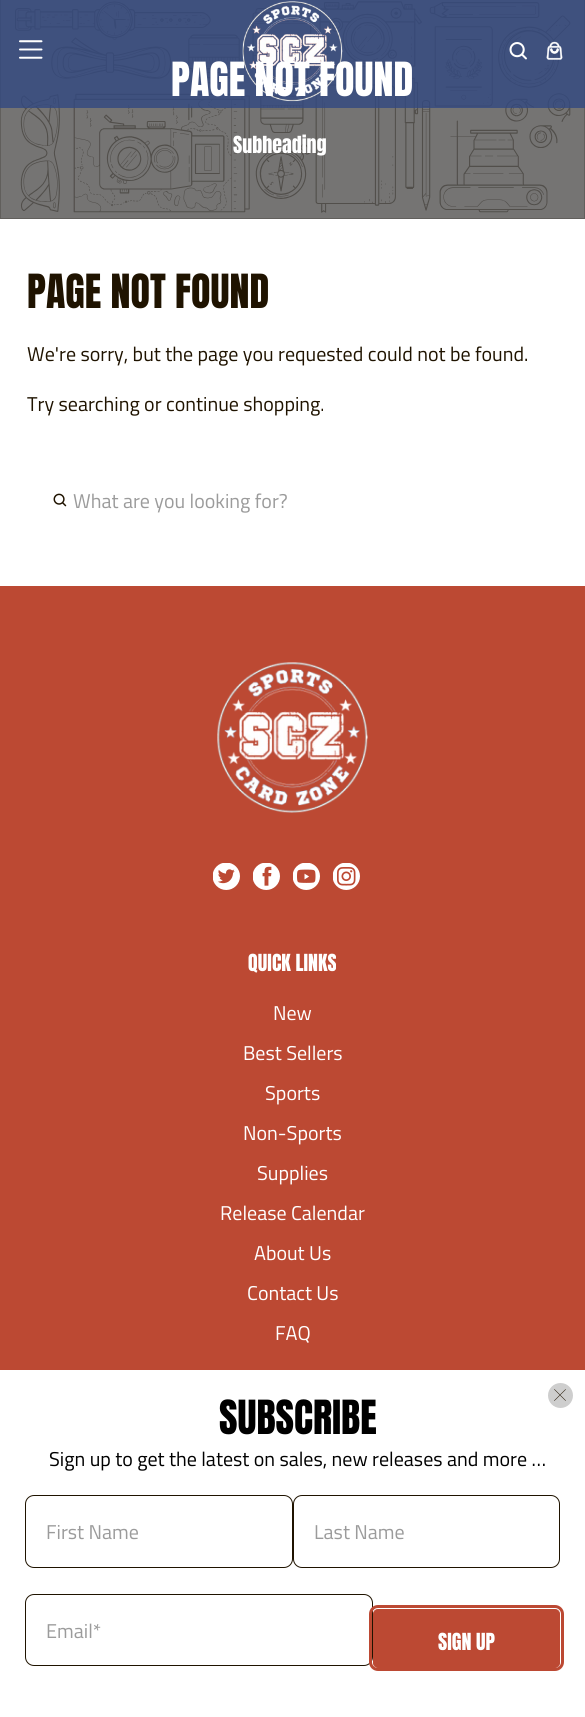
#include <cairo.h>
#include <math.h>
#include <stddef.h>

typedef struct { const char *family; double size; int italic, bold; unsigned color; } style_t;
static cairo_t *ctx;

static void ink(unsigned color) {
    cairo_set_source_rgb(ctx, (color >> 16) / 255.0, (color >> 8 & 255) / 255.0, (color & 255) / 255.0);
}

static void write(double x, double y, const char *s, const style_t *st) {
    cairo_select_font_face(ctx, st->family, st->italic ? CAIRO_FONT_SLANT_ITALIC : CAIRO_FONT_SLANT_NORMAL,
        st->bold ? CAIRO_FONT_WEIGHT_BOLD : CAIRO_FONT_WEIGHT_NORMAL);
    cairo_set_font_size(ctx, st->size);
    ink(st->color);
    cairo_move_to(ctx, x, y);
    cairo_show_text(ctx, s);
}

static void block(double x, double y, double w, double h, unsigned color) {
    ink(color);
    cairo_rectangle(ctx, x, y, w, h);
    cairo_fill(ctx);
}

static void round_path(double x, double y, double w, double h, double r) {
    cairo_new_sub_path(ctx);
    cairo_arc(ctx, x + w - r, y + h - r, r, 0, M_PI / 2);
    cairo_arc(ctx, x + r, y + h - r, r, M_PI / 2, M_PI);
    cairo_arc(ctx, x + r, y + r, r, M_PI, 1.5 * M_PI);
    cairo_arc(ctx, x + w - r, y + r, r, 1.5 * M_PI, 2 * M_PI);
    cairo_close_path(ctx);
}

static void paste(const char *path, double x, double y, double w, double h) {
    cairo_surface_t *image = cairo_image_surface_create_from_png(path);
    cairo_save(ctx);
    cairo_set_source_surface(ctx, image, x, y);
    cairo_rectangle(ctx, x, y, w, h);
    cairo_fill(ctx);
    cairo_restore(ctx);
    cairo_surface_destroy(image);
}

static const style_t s1 = {"Anton", 40, 0, 0, 0xffffff};
static const style_t s2 = {"Anton", 20, 0, 0, 0xffffff};
static const style_t s3 = {"Anton", 40, 0, 0, 0x1f1300};
static const style_t s4 = {"Titillium Web", 20, 0, 0, 0x1f1300};
static const style_t s5 = {"Titillium Web", 20, 0, 0, 0x9b9b9b};
static const style_t s6 = {"Titillium Web", 20, 0, 0, 0xffffff};
static const style_t s7 = {"Anton", 40, 0, 0, 0x000000};
static const style_t s8 = {"Titillium Web", 20, 0, 0, 0x000000};

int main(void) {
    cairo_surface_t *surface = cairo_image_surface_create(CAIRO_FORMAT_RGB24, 585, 1717);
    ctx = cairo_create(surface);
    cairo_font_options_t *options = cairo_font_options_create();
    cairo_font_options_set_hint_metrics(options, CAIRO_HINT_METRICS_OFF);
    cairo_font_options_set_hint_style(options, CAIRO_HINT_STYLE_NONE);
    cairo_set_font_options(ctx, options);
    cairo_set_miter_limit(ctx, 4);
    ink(0xffffff);
    cairo_paint(ctx);
    ink(0x757473);
    cairo_rectangle(ctx, 0.5, -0.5, 584, 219);
    cairo_fill_preserve(ctx);
    ink(0x615f5c);
    cairo_set_line_width(ctx, 1);
    cairo_stroke(ctx);
    paste("pic5.png", 15, 1, 556, 212);
    cairo_set_source_rgba(ctx, 0.2, 0.286, 0.506, 0.8);
    cairo_rectangle(ctx, 0, 0, 585, 108);
    cairo_fill(ctx);
    paste("pic1.png", 19, 40, 24, 19);
    paste("pic2.png", 242, 1, 101, 101);
    paste("pic3.png", 509, 42, 18, 18);
    paste("pic4.png", 546, 41, 17, 19);
    write(171, 96, "PAGE NOT FOUND", &s1);
    write(233, 153, "Subheading", &s2);
    write(27, 308, "PAGE NOT FOUND", &s3);
    write(27, 361, "We're sorry, but the page you requested could not be found.", &s4);
    write(27, 411, "Try searching or continue shopping.", &s4);
    paste("pic6.png", 53, 493, 14, 14);
    write(73, 508, "What are you looking for?", &s5);
    block(0, 586, 585, 784, 0xbc4933);
    paste("pic7.png", 217, 662, 151, 151);
    paste("pic8.png", 213, 863, 27, 27);
    paste("pic9.png", 253, 863, 27, 27);
    paste("pic10.png", 293, 863, 27, 27);
    paste("pic11.png", 333, 863, 27, 27);
    write(248, 971, "QUICK LINKS", &s2);
    write(273, 1020, "New", &s6);
    write(243, 1060, "Best Sellers", &s6);
    write(265, 1100, "Sports", &s6);
    write(243, 1140, "Non-Sports", &s6);
    write(257, 1180, "Supplies", &s6);
    write(220, 1220, "Release Calendar", &s6);
    write(254, 1260, "About Us", &s6);
    write(247, 1300, "Contact Us", &s6);
    write(275, 1340, "FAQ", &s6);
    ink(0xcecece);
    cairo_new_path(ctx);
    cairo_arc(ctx, 560.5, 1395.5, 12.5, 0, 2 * M_PI);
    cairo_fill(ctx);
    paste("pic12.png", 554, 1389, 12, 12);
    write(219, 1434, "SUBSCRIBE", &s7);
    write(49, 1466, "Sign up to get the latest on sales, new releases and more …", &s8);
    round_path(25.5, 1495.5, 267, 72, 8.5);
    ink(0x1f1300);
    cairo_stroke(ctx);
    write(46, 1539, "First Name", &s5);
    round_path(293.5, 1495.5, 266, 72, 8.5);
    ink(0x1f1300);
    cairo_stroke(ctx);
    write(314, 1539, "Last Name", &s5);
    round_path(25.5, 1594.5, 347, 71, 8.5);
    ink(0x1f1300);
    cairo_stroke(ctx);
    write(46, 1638, "Email*", &s5);
    ink(0xbc4933);
    round_path(373.5, 1609.5, 186, 58, 4.5);
    cairo_fill_preserve(ctx);
    cairo_stroke(ctx);
    round_path(370.5, 1606.5, 192, 63, 7.5);
    cairo_set_line_width(ctx, 3);
    cairo_stroke(ctx);
    write(438, 1650, "SIGN UP", &s2);
    cairo_surface_write_to_png(surface, "screenshot.png");
    cairo_font_options_destroy(options);
    cairo_destroy(ctx);
    cairo_surface_destroy(surface);
    return 0;
}
